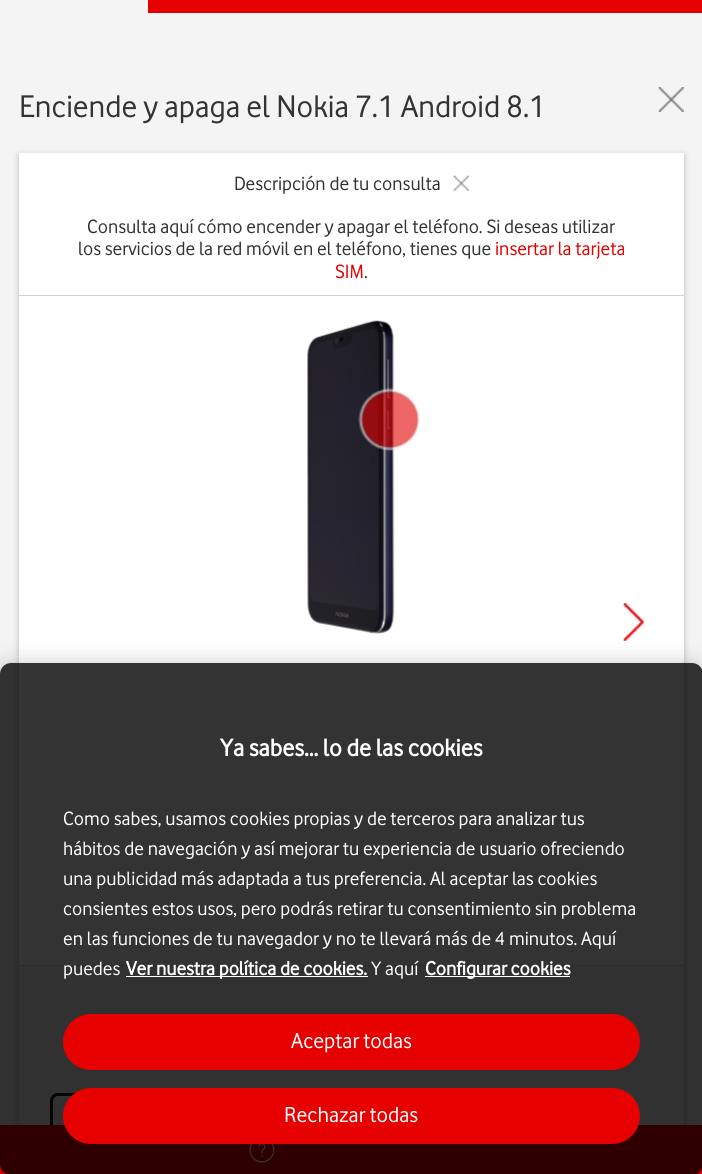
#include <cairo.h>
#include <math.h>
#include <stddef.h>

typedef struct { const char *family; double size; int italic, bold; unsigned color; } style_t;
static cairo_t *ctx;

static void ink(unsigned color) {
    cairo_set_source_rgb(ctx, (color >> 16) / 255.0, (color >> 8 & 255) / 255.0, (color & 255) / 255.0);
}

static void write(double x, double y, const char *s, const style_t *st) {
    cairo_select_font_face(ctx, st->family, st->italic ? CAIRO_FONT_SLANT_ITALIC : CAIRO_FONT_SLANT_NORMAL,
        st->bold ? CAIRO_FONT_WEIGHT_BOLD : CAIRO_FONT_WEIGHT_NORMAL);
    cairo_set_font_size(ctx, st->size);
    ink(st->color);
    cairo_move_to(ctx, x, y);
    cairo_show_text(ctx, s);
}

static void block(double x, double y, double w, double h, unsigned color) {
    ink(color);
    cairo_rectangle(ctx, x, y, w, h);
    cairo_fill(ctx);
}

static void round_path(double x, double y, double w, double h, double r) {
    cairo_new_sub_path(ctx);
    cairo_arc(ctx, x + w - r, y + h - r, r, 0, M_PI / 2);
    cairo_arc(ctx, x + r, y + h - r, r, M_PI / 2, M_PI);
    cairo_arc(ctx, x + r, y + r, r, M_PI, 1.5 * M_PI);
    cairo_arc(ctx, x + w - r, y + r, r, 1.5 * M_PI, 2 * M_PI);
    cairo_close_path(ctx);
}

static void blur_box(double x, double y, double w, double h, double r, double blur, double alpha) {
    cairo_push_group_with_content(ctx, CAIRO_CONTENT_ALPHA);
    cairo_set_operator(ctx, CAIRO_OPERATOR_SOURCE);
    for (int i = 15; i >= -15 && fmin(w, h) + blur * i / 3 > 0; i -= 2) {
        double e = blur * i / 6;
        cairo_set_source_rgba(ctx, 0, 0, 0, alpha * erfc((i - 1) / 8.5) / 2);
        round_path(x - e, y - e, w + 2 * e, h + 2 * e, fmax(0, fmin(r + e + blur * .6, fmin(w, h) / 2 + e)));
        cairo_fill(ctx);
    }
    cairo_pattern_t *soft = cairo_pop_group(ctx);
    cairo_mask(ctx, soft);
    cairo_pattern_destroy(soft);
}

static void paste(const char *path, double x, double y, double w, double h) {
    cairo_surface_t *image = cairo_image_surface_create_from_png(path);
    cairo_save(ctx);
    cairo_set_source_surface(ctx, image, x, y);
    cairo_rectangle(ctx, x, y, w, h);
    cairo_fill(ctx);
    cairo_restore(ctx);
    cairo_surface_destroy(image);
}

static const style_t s1 = {"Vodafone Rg", 32.5, 0, 0, 0x333333};
static const style_t s2 = {"Vodafone Rg", 20, 0, 0, 0x333333};
static const style_t s3 = {"Vodafone Rg", 20, 0, 0, 0xe60000};
static const style_t s4 = {"Vodafone Rg", 25, 0, 1, 0xffffff};
static const style_t s5 = {"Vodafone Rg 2", 20, 0, 0, 0xffffff};
static const style_t s6 = {"Vodafone Rg", 20, 0, 1, 0xffffff};
static const style_t s7 = {"Vodafone Rg 2", 22.5, 0, 0, 0xffffff};

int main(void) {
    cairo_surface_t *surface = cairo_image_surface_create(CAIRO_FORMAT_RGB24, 702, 1174);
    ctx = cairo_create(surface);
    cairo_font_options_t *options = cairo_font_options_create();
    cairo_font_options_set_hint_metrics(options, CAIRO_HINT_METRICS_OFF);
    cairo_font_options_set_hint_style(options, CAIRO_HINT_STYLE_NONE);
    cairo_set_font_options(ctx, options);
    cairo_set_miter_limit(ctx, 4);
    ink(0xf4f4f4);
    cairo_paint(ctx);
    block(148, 0, 554, 13, 0xe60000);
    write(19, 117, "Enciende y apaga el Nokia 7.1 Android 8.1", &s1);
    paste("pic1.png", 658, 87, 26, 25);
    ink(0x000000);
    blur_box(19, 155, 665, 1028, 0, 3, 0.25);
    block(19, 153, 665, 812, 0xffffff);
    block(19, 295, 665, 1, 0xd1d1d1);
    write(234, 190, "Descripción de tu consulta", &s2);
    paste("pic2.png", 453, 175, 16, 16);
    write(87, 233, "Consulta aquí cómo encender y apagar el teléfono. Si deseas utilizar", &s2);
    write(78, 255, "los servicios de la red móvil en el teléfono, tienes que", &s2);
    write(495, 255, "insertar la tarjeta", &s3);
    write(335, 278, "SIM", &s3);
    write(364, 278, ".", &s2);
    paste("pic3.png", 307, 320, 88, 314);
    paste("pic4.png", 358, 387, 62, 64);
    paste("pic5.png", 623, 603, 21, 38);
    block(19, 966, 665, 159, 0xf4f4f4);
    block(19, 965, 665, 1, 0xd1d1d1);
    round_path(51.5, 1094.5, 222, 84, 6.5);
    ink(0x0d0d0d);
    cairo_set_line_width(ctx, 3);
    cairo_stroke(ctx);
    block(0, 1125, 702, 49, 0xe60001);
    paste("pic6.png", 249, 1144, 26, 19);
    cairo_save(ctx);
    cairo_set_fill_rule(ctx, CAIRO_FILL_RULE_EVEN_ODD);
    cairo_new_path(ctx);
    cairo_move_to(ctx, 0, 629);
    cairo_line_to(ctx, 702, 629);
    cairo_line_to(ctx, 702, 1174);
    cairo_line_to(ctx, 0, 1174);
    cairo_close_path(ctx);
    cairo_move_to(ctx, 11, 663);
    cairo_line_to(ctx, 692, 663);
    cairo_curve_to(ctx, 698, 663, 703, 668, 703, 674);
    cairo_line_to(ctx, 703, 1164);
    cairo_curve_to(ctx, 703, 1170, 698, 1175, 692, 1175);
    cairo_line_to(ctx, 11, 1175);
    cairo_curve_to(ctx, 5, 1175, 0, 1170, 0, 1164);
    cairo_line_to(ctx, 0, 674);
    cairo_curve_to(ctx, 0, 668, 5, 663, 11, 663);
    cairo_close_path(ctx);
    cairo_clip(ctx);
    ink(0x000000);
    blur_box(0, 663, 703, 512, 11, 11, 0.2);
    cairo_restore(ctx);
    cairo_set_source_rgba(ctx, 0, 0, 0, 0.8);
    round_path(0, 663, 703, 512, 11);
    cairo_fill(ctx);
    write(220, 756, "Ya sabes... lo de las cookies", &s4);
    write(63, 825, "Como sabes, usamos cookies propias y de terceros para analizar tus", &s5);
    write(63, 855, "hábitos de navegación y así mejorar tu experiencia de usuario ofreciendo", &s5);
    write(63, 885, "una publicidad más adaptada a tus preferencia. Al aceptar las cookies", &s5);
    write(63, 915, "consientes estos usos, pero podrás retirar tu consentimiento sin problema", &s5);
    write(63, 945, "en las funciones de tu navegador y no te llevará más de 4 minutos. Aquí", &s5);
    write(63, 975, "puedes", &s5);
    block(126, 976, 242, 1, 0xffffff);
    write(126, 975, "Ver nuestra política de cookies.", &s6);
    write(371, 975, "Y aquí", &s5);
    block(425, 976, 145, 1, 0xffffff);
    write(425, 975, "Configurar cookies", &s6);
    ink(0xe60000);
    round_path(63, 1014, 577, 56, 28);
    cairo_fill(ctx);
    write(291, 1048, "Aceptar todas", &s7);
    ink(0xe60000);
    round_path(63, 1088, 577, 56, 28);
    cairo_fill(ctx);
    write(284, 1122, "Rechazar todas", &s7);
    cairo_surface_write_to_png(surface, "screenshot.png");
    cairo_font_options_destroy(options);
    cairo_destroy(ctx);
    cairo_surface_destroy(surface);
    return 0;
}
